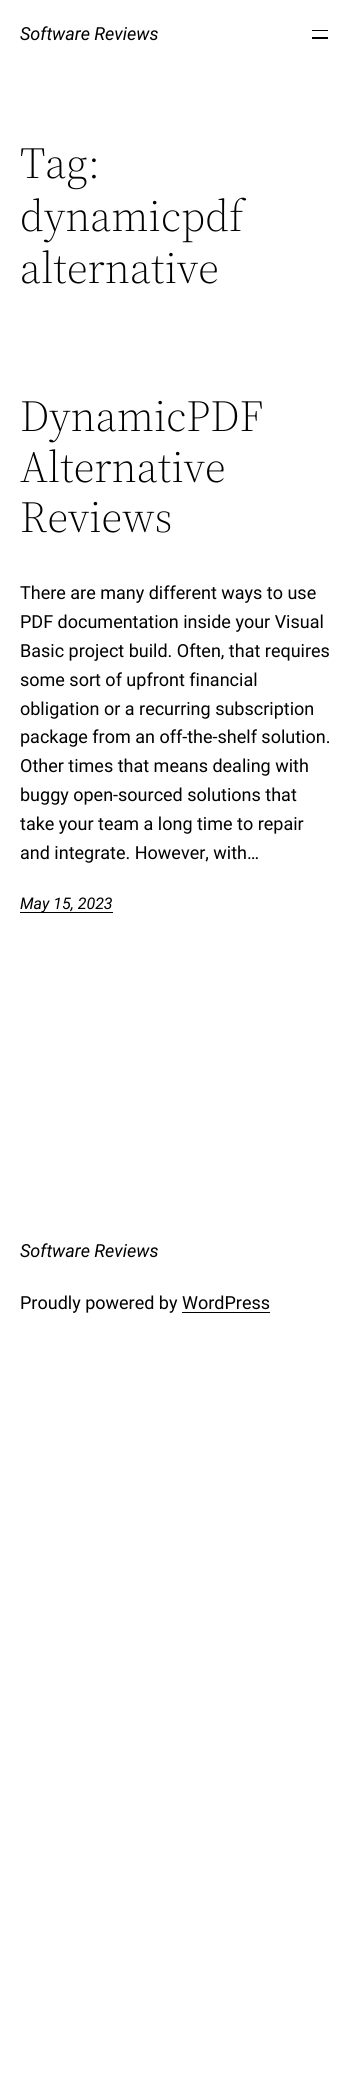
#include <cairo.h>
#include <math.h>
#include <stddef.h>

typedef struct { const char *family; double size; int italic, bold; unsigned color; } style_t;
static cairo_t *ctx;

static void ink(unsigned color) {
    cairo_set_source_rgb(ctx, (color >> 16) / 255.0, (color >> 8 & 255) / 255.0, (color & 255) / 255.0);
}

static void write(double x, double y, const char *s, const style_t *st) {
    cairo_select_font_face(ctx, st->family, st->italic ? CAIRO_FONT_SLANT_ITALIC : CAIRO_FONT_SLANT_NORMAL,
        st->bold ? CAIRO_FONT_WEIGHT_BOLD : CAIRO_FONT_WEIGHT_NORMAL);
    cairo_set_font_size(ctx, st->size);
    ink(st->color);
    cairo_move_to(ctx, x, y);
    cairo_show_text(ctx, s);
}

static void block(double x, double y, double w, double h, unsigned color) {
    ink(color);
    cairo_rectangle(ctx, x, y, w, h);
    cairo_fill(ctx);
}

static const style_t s1 = {"Roboto", 18, 1, 0, 0x000000};
static const style_t s2 = {"Source Serif 4 Light", 44, 0, 0, 0x000000};
static const style_t s3 = {"Roboto", 18, 0, 0, 0x000000};
static const style_t s4 = {"Roboto", 16, 1, 0, 0x000000};

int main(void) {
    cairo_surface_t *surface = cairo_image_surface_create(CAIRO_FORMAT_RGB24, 352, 2097);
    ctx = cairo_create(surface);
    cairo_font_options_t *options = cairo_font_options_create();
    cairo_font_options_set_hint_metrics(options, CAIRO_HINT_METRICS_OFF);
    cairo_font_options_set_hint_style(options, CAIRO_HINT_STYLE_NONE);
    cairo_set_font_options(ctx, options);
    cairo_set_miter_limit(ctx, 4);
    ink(0xffffff);
    cairo_paint(ctx);
    write(20, 40, "Software Reviews", &s1);
    block(312, 30, 16, 1, 0x000000);
    block(312, 37, 16, 2, 0x000000);
    write(20, 178, "Tag:", &s2);
    write(20, 231, "dynamicpdf", &s2);
    write(20, 283, "alternative", &s2);
    write(20, 431, "DynamicPDF", &s2);
    write(20, 482, "Alternative", &s2);
    write(20, 532, "Reviews", &s2);
    write(20, 599, "There are many different ways to use", &s3);
    write(20, 628, "PDF documentation inside your Visual", &s3);
    write(20, 657, "Basic project build. Often, that requires", &s3);
    write(20, 686, "some sort of upfront financial", &s3);
    write(20, 715, "obligation or a recurring subscription", &s3);
    write(20, 743, "package from an off-the-shelf solution.", &s3);
    write(20, 772, "Other times that means dealing with", &s3);
    write(20, 801, "buggy open-sourced solutions that", &s3);
    write(20, 830, "take your team a long time to repair", &s3);
    write(20, 859, "and integrate. However, with…", &s3);
    block(20, 912, 93, 1, 0x000000);
    write(20, 909, "May 15, 2023", &s4);
    write(20, 1257, "Software Reviews", &s1);
    write(20, 1309, "Proudly powered by WordPress", &s3);
    block(182, 1312, 88, 1, 0x000000);
    cairo_surface_write_to_png(surface, "screenshot.png");
    cairo_font_options_destroy(options);
    cairo_destroy(ctx);
    cairo_surface_destroy(surface);
    return 0;
}
